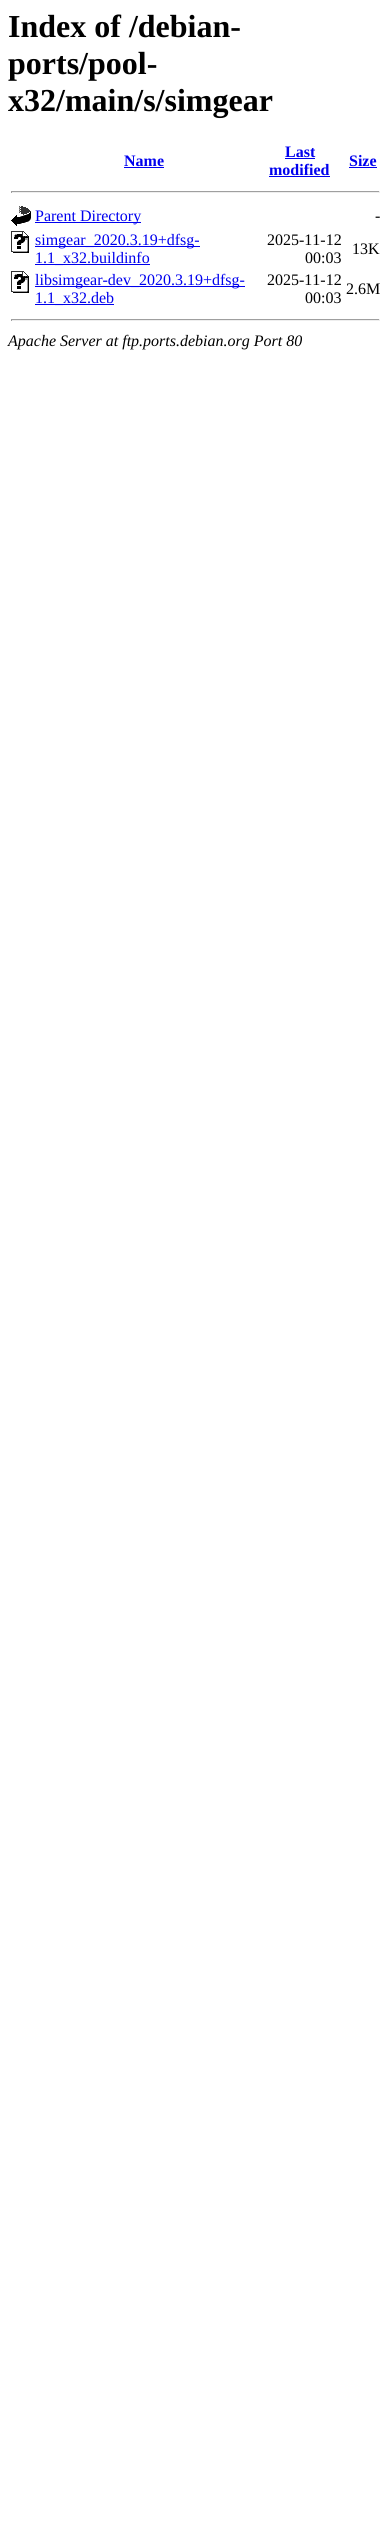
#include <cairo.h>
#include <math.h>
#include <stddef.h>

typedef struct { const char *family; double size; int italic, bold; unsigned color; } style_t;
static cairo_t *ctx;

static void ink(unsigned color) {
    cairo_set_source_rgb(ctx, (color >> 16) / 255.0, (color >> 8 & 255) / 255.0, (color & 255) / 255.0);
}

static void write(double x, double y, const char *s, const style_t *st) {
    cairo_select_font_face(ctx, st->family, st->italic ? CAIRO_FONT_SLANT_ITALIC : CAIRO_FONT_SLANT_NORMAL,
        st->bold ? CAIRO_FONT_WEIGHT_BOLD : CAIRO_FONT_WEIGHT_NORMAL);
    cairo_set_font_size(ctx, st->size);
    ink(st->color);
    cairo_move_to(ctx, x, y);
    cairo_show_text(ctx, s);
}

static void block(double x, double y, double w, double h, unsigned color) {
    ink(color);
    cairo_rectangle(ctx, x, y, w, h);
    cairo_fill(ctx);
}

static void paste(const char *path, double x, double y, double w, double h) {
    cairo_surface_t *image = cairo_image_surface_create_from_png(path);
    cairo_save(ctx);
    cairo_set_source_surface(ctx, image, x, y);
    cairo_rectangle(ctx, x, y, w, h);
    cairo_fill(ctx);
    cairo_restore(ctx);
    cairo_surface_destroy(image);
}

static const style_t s1 = {"Liberation Serif", 32, 0, 1, 0x000000};
static const style_t s2 = {"Liberation Serif", 16, 0, 1, 0x0000ee};
static const style_t s3 = {"Liberation Serif", 16, 0, 0, 0x0000ee};
static const style_t s4 = {"Liberation Serif", 16, 0, 0, 0x000000};
static const style_t s5 = {"Liberation Serif", 16, 1, 0, 0x000000};

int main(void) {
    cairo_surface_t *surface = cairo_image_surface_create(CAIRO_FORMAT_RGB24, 391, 2527);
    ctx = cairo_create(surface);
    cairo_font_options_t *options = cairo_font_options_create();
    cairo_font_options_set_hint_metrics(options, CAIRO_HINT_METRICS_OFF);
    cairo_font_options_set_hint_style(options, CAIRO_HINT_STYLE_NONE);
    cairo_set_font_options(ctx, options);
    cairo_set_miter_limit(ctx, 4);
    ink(0xffffff);
    cairo_paint(ctx);
    write(8, 37, "Index of /debian-", &s1);
    write(8, 74, "ports/pool-", &s1);
    write(8, 111, "x32/main/s/simgear", &s1);
    write(124, 166, "Name", &s2);
    block(124, 167, 40, 1, 0x0000ee);
    write(285, 157, "Last", &s2);
    block(285, 158, 30, 1, 0x0000ee);
    write(269, 175, "modified", &s2);
    block(269, 176, 61, 1, 0x0000ee);
    write(349, 166, "Size", &s2);
    block(349, 167, 28, 1, 0x0000ee);
    block(11, 191, 369, 1, 0x9f9f9f);
    block(379, 191, 1, 2, 0xeeeeee);
    block(11, 192, 369, 1, 0xeeeeee);
    block(11, 191, 1, 2, 0x9f9f9f);
    paste("pic1.png", 11, 206, 20, 20);
    block(35, 222, 106, 1, 0x0000ee);
    write(35, 221, "Parent Directory", &s3);
    write(375, 221, "-", &s4);
    paste("pic2.png", 11, 231, 18, 22);
    block(35, 246, 165, 1, 0x0000ee);
    write(35, 245, "simgear_2020.3.19+dfsg-", &s3);
    block(35, 264, 115, 1, 0x0000ee);
    write(35, 263, "1.1_x32.buildinfo", &s3);
    write(267, 245, "2025-11-12", &s4);
    write(305, 263, "00:03", &s4);
    write(352, 254, "13K", &s4);
    paste("pic2.png", 11, 271, 18, 22);
    block(35, 286, 210, 1, 0x0000ee);
    write(35, 285, "libsimgear-dev_2020.3.19+dfsg-", &s3);
    block(35, 304, 79, 1, 0x0000ee);
    write(35, 303, "1.1_x32.deb", &s3);
    write(267, 285, "2025-11-12", &s4);
    write(305, 303, "00:03", &s4);
    write(346, 294, "2.6M", &s4);
    block(11, 319, 369, 1, 0x9f9f9f);
    block(379, 319, 1, 2, 0xeeeeee);
    block(11, 320, 369, 1, 0xeeeeee);
    block(11, 319, 1, 2, 0x9f9f9f);
    write(8, 346, "Apache Server at ftp.ports.debian.org Port 80", &s5);
    cairo_surface_write_to_png(surface, "screenshot.png");
    cairo_font_options_destroy(options);
    cairo_destroy(ctx);
    cairo_surface_destroy(surface);
    return 0;
}
